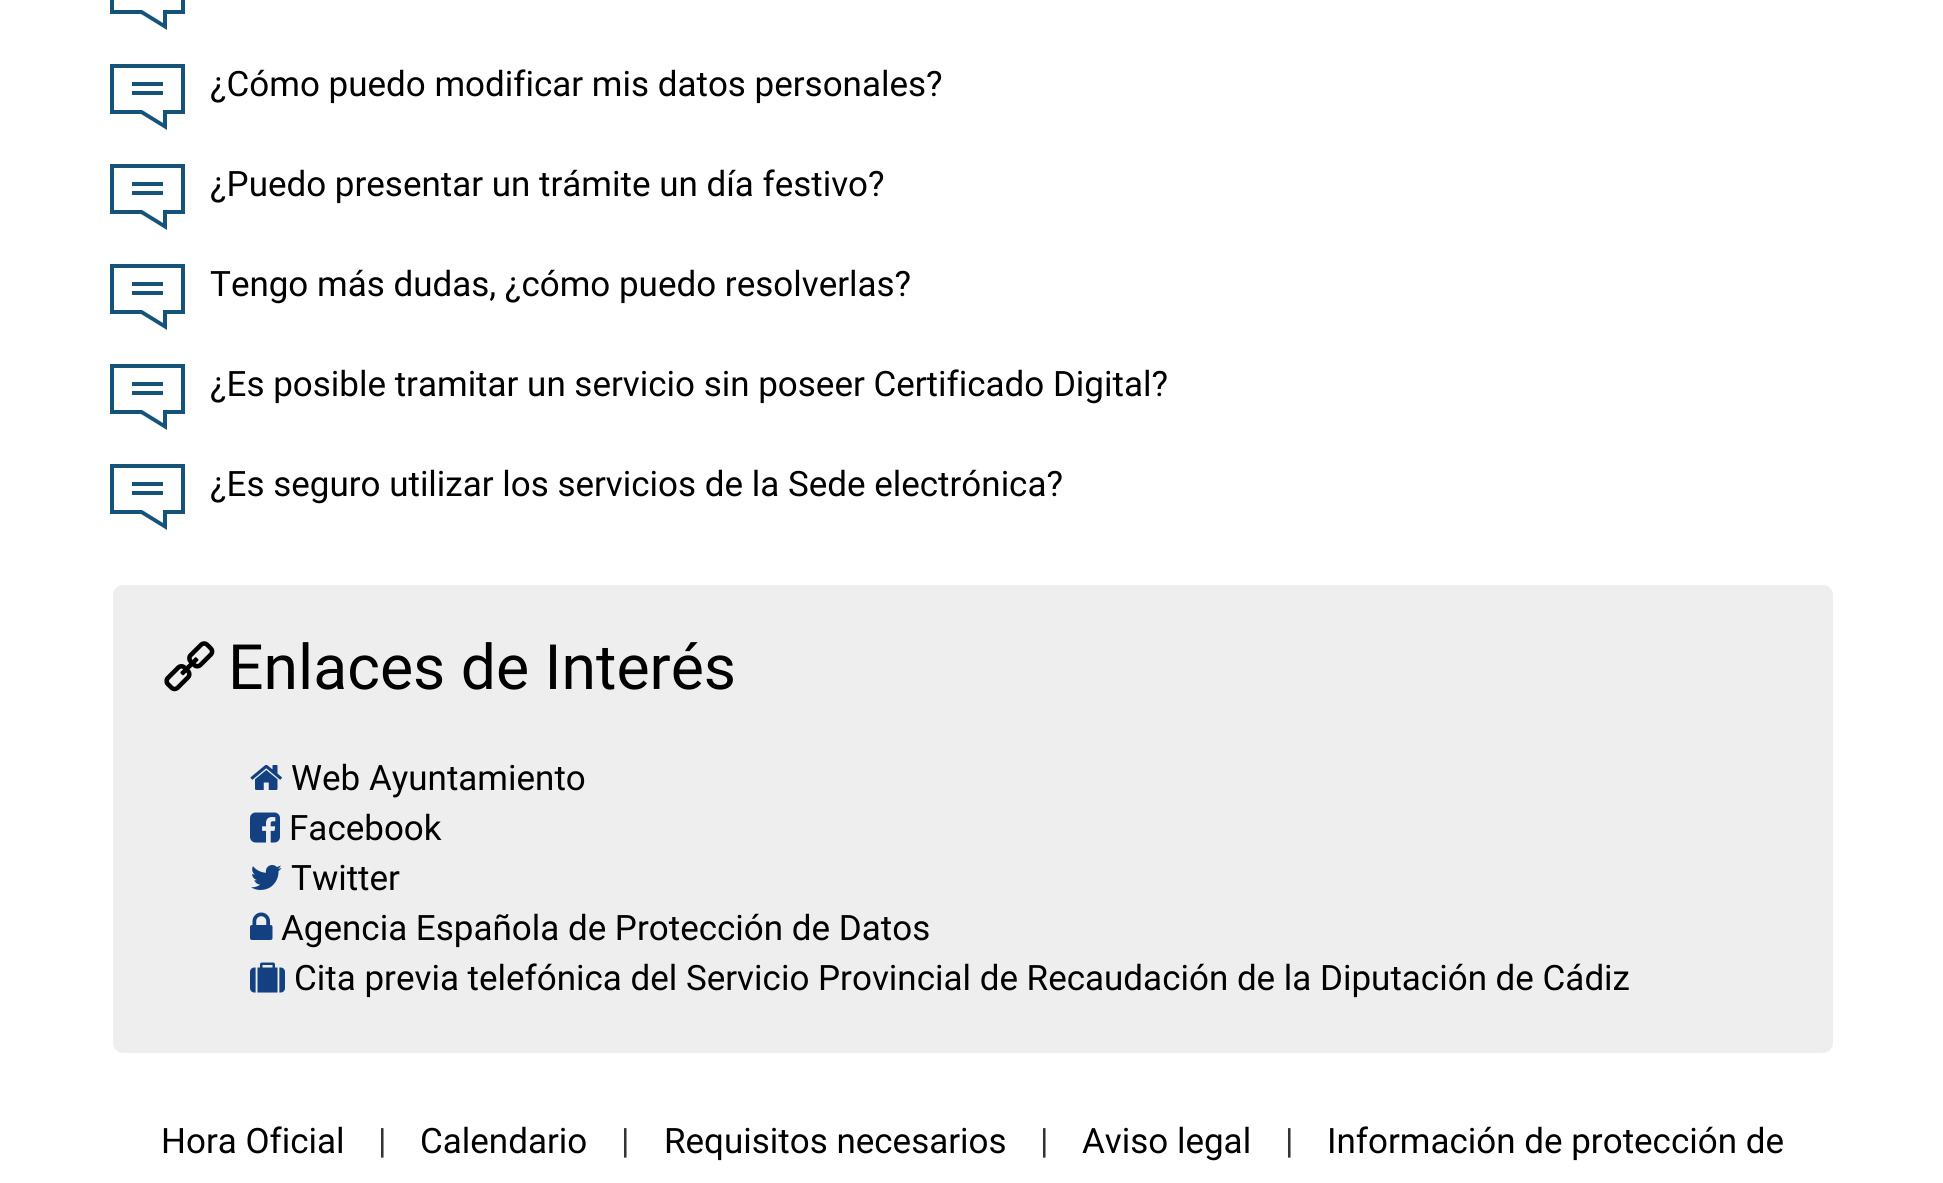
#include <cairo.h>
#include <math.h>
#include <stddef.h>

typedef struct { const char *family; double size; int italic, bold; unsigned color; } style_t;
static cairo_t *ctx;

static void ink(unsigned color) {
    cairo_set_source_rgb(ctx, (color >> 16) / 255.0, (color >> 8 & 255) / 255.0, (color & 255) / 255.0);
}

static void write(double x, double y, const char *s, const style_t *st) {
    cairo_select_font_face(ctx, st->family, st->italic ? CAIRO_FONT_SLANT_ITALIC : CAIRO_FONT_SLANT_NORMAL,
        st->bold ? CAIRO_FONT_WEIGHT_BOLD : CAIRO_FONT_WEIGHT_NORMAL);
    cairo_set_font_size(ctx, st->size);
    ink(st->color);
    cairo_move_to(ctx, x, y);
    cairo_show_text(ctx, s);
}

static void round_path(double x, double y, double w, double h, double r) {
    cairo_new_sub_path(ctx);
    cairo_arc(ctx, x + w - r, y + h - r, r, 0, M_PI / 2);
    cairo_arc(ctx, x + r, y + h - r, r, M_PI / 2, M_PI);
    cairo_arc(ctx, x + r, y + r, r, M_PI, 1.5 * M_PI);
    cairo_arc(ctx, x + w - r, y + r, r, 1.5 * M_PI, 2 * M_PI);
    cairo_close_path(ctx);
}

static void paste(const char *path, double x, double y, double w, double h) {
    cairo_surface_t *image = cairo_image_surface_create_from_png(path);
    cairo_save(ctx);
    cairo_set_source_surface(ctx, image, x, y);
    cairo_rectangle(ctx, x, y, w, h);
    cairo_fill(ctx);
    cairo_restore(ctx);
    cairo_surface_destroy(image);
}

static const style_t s1 = {"Roboto", 35, 0, 0, 0x000000};
static const style_t s2 = {"Roboto", 62.5, 0, 0, 0x000000};
static const style_t s3 = {"Roboto", 35, 0, 0, 0x333333};

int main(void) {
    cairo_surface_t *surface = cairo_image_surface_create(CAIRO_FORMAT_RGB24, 1943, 1183);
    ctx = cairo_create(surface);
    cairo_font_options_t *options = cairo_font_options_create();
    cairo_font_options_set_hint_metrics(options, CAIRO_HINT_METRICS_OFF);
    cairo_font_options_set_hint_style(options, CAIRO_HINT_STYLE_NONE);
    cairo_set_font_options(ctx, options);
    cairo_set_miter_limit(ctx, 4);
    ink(0xffffff);
    cairo_paint(ctx);
    ink(0x15537a);
    cairo_new_path(ctx);
    cairo_move_to(ctx, 185, -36);
    cairo_line_to(ctx, 185, 14);
    cairo_line_to(ctx, 167, 14);
    cairo_line_to(ctx, 167, 30);
    cairo_line_to(ctx, 141, 14);
    cairo_line_to(ctx, 110, 14);
    cairo_line_to(ctx, 110, -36);
    cairo_close_path(ctx);
    cairo_move_to(ctx, 114, 10);
    cairo_line_to(ctx, 142, 10);
    cairo_line_to(ctx, 163, 23);
    cairo_line_to(ctx, 163, 10);
    cairo_line_to(ctx, 181, 10);
    cairo_line_to(ctx, 181, -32);
    cairo_line_to(ctx, 114, -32);
    cairo_close_path(ctx);
    cairo_move_to(ctx, 132, -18);
    cairo_line_to(ctx, 163, -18);
    cairo_line_to(ctx, 163, -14);
    cairo_line_to(ctx, 132, -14);
    cairo_close_path(ctx);
    cairo_move_to(ctx, 132, -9);
    cairo_line_to(ctx, 163, -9);
    cairo_line_to(ctx, 163, -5);
    cairo_line_to(ctx, 132, -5);
    cairo_close_path(ctx);
    cairo_fill(ctx);
    cairo_new_path(ctx);
    cairo_move_to(ctx, 185, 64);
    cairo_line_to(ctx, 185, 114);
    cairo_line_to(ctx, 167, 114);
    cairo_line_to(ctx, 167, 130);
    cairo_line_to(ctx, 141, 114);
    cairo_line_to(ctx, 110, 114);
    cairo_line_to(ctx, 110, 64);
    cairo_close_path(ctx);
    cairo_move_to(ctx, 114, 110);
    cairo_line_to(ctx, 142, 110);
    cairo_line_to(ctx, 163, 123);
    cairo_line_to(ctx, 163, 110);
    cairo_line_to(ctx, 181, 110);
    cairo_line_to(ctx, 181, 68);
    cairo_line_to(ctx, 114, 68);
    cairo_close_path(ctx);
    cairo_move_to(ctx, 132, 82);
    cairo_line_to(ctx, 163, 82);
    cairo_line_to(ctx, 163, 86);
    cairo_line_to(ctx, 132, 86);
    cairo_close_path(ctx);
    cairo_move_to(ctx, 132, 91);
    cairo_line_to(ctx, 163, 91);
    cairo_line_to(ctx, 163, 95);
    cairo_line_to(ctx, 132, 95);
    cairo_close_path(ctx);
    cairo_fill(ctx);
    write(210, 96, "¿Cómo puedo modificar mis datos personales?", &s1);
    ink(0x15537a);
    cairo_new_path(ctx);
    cairo_move_to(ctx, 185, 164);
    cairo_line_to(ctx, 185, 214);
    cairo_line_to(ctx, 167, 214);
    cairo_line_to(ctx, 167, 230);
    cairo_line_to(ctx, 141, 214);
    cairo_line_to(ctx, 110, 214);
    cairo_line_to(ctx, 110, 164);
    cairo_close_path(ctx);
    cairo_move_to(ctx, 114, 210);
    cairo_line_to(ctx, 142, 210);
    cairo_line_to(ctx, 163, 223);
    cairo_line_to(ctx, 163, 210);
    cairo_line_to(ctx, 181, 210);
    cairo_line_to(ctx, 181, 168);
    cairo_line_to(ctx, 114, 168);
    cairo_close_path(ctx);
    cairo_move_to(ctx, 132, 182);
    cairo_line_to(ctx, 163, 182);
    cairo_line_to(ctx, 163, 186);
    cairo_line_to(ctx, 132, 186);
    cairo_close_path(ctx);
    cairo_move_to(ctx, 132, 191);
    cairo_line_to(ctx, 163, 191);
    cairo_line_to(ctx, 163, 195);
    cairo_line_to(ctx, 132, 195);
    cairo_close_path(ctx);
    cairo_fill(ctx);
    write(210, 196, "¿Puedo presentar un trámite un día festivo?", &s1);
    ink(0x15537a);
    cairo_new_path(ctx);
    cairo_move_to(ctx, 185, 264);
    cairo_line_to(ctx, 185, 314);
    cairo_line_to(ctx, 167, 314);
    cairo_line_to(ctx, 167, 330);
    cairo_line_to(ctx, 141, 314);
    cairo_line_to(ctx, 110, 314);
    cairo_line_to(ctx, 110, 264);
    cairo_close_path(ctx);
    cairo_move_to(ctx, 114, 310);
    cairo_line_to(ctx, 142, 310);
    cairo_line_to(ctx, 163, 323);
    cairo_line_to(ctx, 163, 310);
    cairo_line_to(ctx, 181, 310);
    cairo_line_to(ctx, 181, 268);
    cairo_line_to(ctx, 114, 268);
    cairo_close_path(ctx);
    cairo_move_to(ctx, 132, 282);
    cairo_line_to(ctx, 163, 282);
    cairo_line_to(ctx, 163, 286);
    cairo_line_to(ctx, 132, 286);
    cairo_close_path(ctx);
    cairo_move_to(ctx, 132, 291);
    cairo_line_to(ctx, 163, 291);
    cairo_line_to(ctx, 163, 295);
    cairo_line_to(ctx, 132, 295);
    cairo_close_path(ctx);
    cairo_fill(ctx);
    write(210, 296, "Tengo más dudas, ¿cómo puedo resolverlas?", &s1);
    ink(0x15537a);
    cairo_new_path(ctx);
    cairo_move_to(ctx, 185, 364);
    cairo_line_to(ctx, 185, 414);
    cairo_line_to(ctx, 167, 414);
    cairo_line_to(ctx, 167, 430);
    cairo_line_to(ctx, 141, 414);
    cairo_line_to(ctx, 110, 414);
    cairo_line_to(ctx, 110, 364);
    cairo_close_path(ctx);
    cairo_move_to(ctx, 114, 410);
    cairo_line_to(ctx, 142, 410);
    cairo_line_to(ctx, 163, 423);
    cairo_line_to(ctx, 163, 410);
    cairo_line_to(ctx, 181, 410);
    cairo_line_to(ctx, 181, 368);
    cairo_line_to(ctx, 114, 368);
    cairo_close_path(ctx);
    cairo_move_to(ctx, 132, 382);
    cairo_line_to(ctx, 163, 382);
    cairo_line_to(ctx, 163, 386);
    cairo_line_to(ctx, 132, 386);
    cairo_close_path(ctx);
    cairo_move_to(ctx, 132, 391);
    cairo_line_to(ctx, 163, 391);
    cairo_line_to(ctx, 163, 395);
    cairo_line_to(ctx, 132, 395);
    cairo_close_path(ctx);
    cairo_fill(ctx);
    write(210, 396, "¿Es posible tramitar un servicio sin poseer Certificado Digital?", &s1);
    ink(0x15537a);
    cairo_new_path(ctx);
    cairo_move_to(ctx, 185, 464);
    cairo_line_to(ctx, 185, 514);
    cairo_line_to(ctx, 167, 514);
    cairo_line_to(ctx, 167, 530);
    cairo_line_to(ctx, 141, 514);
    cairo_line_to(ctx, 110, 514);
    cairo_line_to(ctx, 110, 464);
    cairo_close_path(ctx);
    cairo_move_to(ctx, 114, 510);
    cairo_line_to(ctx, 142, 510);
    cairo_line_to(ctx, 163, 523);
    cairo_line_to(ctx, 163, 510);
    cairo_line_to(ctx, 181, 510);
    cairo_line_to(ctx, 181, 468);
    cairo_line_to(ctx, 114, 468);
    cairo_close_path(ctx);
    cairo_move_to(ctx, 132, 482);
    cairo_line_to(ctx, 163, 482);
    cairo_line_to(ctx, 163, 486);
    cairo_line_to(ctx, 132, 486);
    cairo_close_path(ctx);
    cairo_move_to(ctx, 132, 491);
    cairo_line_to(ctx, 163, 491);
    cairo_line_to(ctx, 163, 495);
    cairo_line_to(ctx, 132, 495);
    cairo_close_path(ctx);
    cairo_fill(ctx);
    write(210, 496, "¿Es seguro utilizar los servicios de la Sede electrónica?", &s1);
    ink(0xeeeeee);
    round_path(113, 585, 1720, 468, 10);
    cairo_fill(ctx);
    paste("pic1.png", 164, 641, 51, 51);
    write(228, 689, "Enlaces de Interés", &s2);
    paste("pic2.png", 250, 764, 32, 26);
    write(291, 790, "Web Ayuntamiento", &s1);
    paste("pic3.png", 250, 812, 30, 31);
    write(289, 840, "Facebook", &s1);
    paste("pic4.png", 251, 865, 31, 25);
    write(291, 890, "Twitter", &s1);
    paste("pic5.png", 250, 912, 23, 28);
    write(281, 940, "Agencia Española de Protección de Datos", &s1);
    paste("pic6.png", 250, 962, 35, 31);
    write(294, 990, "Cita previa telefónica del Servicio Provincial de Recaudación de la Diputación de Cádiz", &s1);
    write(161, 1153, "Hora Oficial", &s1);
    write(378, 1153, "|", &s3);
    write(420, 1153, "Calendario", &s1);
    write(621, 1153, "|", &s3);
    write(664, 1153, "Requisitos necesarios", &s1);
    write(1040, 1153, "|", &s3);
    write(1082, 1153, "Aviso legal", &s1);
    write(1285, 1153, "|", &s3);
    write(1327, 1153, "Información de protección de", &s1);
    cairo_surface_write_to_png(surface, "screenshot.png");
    cairo_font_options_destroy(options);
    cairo_destroy(ctx);
    cairo_surface_destroy(surface);
    return 0;
}
